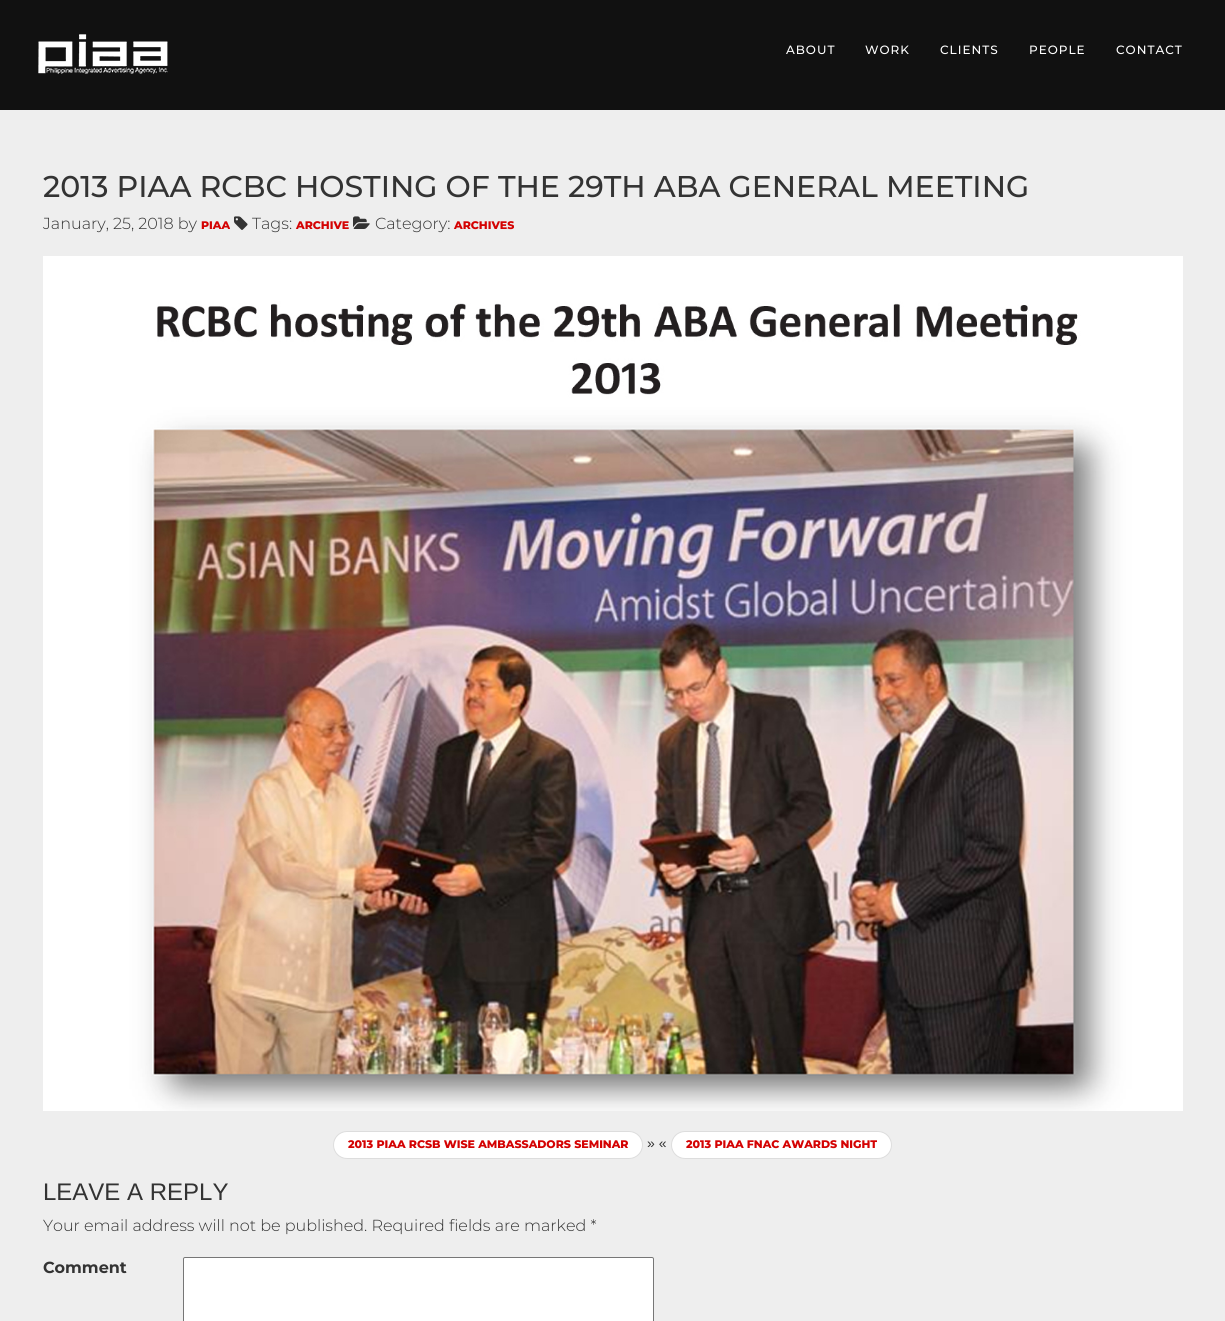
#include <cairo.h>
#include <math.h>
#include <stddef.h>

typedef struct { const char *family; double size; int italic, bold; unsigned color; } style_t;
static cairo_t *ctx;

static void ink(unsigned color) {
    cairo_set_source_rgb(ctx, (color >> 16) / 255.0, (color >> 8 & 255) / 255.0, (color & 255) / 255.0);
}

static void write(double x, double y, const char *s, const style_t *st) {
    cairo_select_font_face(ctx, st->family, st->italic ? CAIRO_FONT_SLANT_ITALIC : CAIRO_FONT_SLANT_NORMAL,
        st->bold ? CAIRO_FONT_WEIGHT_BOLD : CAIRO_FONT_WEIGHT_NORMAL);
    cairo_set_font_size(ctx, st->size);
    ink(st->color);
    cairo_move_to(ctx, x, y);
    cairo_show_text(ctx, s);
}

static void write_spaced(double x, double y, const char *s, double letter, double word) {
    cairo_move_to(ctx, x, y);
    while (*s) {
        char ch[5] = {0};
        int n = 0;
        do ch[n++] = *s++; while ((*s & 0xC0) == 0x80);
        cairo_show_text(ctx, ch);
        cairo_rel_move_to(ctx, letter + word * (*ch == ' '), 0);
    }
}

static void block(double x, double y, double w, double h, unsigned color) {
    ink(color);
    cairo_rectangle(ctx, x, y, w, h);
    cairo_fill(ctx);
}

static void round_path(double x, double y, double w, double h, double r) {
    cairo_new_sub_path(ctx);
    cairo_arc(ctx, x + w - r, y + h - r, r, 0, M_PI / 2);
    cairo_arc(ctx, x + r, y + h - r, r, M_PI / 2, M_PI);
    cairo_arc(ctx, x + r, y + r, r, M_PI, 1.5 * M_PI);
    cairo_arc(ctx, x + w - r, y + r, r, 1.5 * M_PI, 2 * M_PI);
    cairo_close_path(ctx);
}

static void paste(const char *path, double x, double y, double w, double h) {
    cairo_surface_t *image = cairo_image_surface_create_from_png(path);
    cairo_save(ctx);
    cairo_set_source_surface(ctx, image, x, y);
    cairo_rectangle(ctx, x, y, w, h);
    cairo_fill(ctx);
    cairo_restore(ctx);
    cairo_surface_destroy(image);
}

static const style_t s1 = {"Montserrat Medium", 30, 0, 0, 0x333333};
static const style_t s2 = {"Montserrat Light", 16, 0, 0, 0x333333};
static const style_t s3 = {"Montserrat ExtraBold", 11, 0, 0, 0xd40202};
static const style_t s4 = {"Liberation Sans", 14, 0, 0, 0x333333};
static const style_t s5 = {"Liberation Sans", 24, 0, 0, 0x333333};
static const style_t s6 = {"Montserrat", 16, 0, 1, 0x333333};

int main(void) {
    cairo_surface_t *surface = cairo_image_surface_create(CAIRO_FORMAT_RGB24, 1225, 1321);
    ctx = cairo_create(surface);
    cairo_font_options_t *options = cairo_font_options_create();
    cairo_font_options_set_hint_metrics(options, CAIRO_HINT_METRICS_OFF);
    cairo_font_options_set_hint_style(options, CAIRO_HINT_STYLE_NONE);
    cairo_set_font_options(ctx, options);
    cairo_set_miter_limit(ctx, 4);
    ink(0xeeeeee);
    cairo_paint(ctx);
    block(0, 0, 1225, 110, 0x111111);
    paste("pic1.png", 38, 34, 130, 40);
    cairo_select_font_face(ctx, "Montserrat Medium", CAIRO_FONT_SLANT_NORMAL, CAIRO_FONT_WEIGHT_NORMAL);
    cairo_set_font_size(ctx, 12);
    ink(0xffffff);
    write_spaced(786, 54, "ABOUT", 1, 0);
    write_spaced(865, 54, "WORK", 1, 0);
    write_spaced(940, 54, "CLIENTS", 1, 0);
    write_spaced(1029, 54, "PEOPLE", 1, 0);
    write_spaced(1116, 54, "CONTACT", 1, 0);
    write(43, 197, "2013 PIAA RCBC HOSTING OF THE 29TH ABA GENERAL MEETING", &s1);
    write(43, 229, "January, 25, 2018 by", &s2);
    write(201, 229, "PIAA", &s3);
    paste("pic2.png", 234, 216, 14, 14);
    write(252, 229, "Tags:", &s2);
    write(296, 229, "ARCHIVE", &s3);
    paste("pic3.png", 353, 216, 17, 13);
    write(375, 229, "Category:", &s2);
    write(454, 229, "ARCHIVES", &s3);
    paste("pic4.png", 43, 256, 1140, 855);
    ink(0xffffff);
    round_path(333.5, 1131.5, 309, 27, 13.5);
    cairo_fill_preserve(ctx);
    ink(0xdddddd);
    cairo_set_line_width(ctx, 1);
    cairo_stroke(ctx);
    write(348, 1148, "2013 PIAA RCSB WISE AMBASSADORS SEMINAR", &s3);
    write(647, 1148, "» «", &s4);
    ink(0xffffff);
    round_path(671.5, 1131.5, 220, 27, 13.5);
    cairo_fill_preserve(ctx);
    ink(0xdddddd);
    cairo_stroke(ctx);
    write(686, 1148, "2013 PIAA FNAC AWARDS NIGHT", &s3);
    write(43, 1200, "LEAVE A REPLY", &s5);
    write(43, 1231, "Your email address will not be published. Required fields are marked *", &s2);
    write(43, 1273, "Comment", &s6);
    ink(0xffffff);
    round_path(183.5, 1257.5, 470, 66, 1.5);
    cairo_fill_preserve(ctx);
    ink(0x767676);
    cairo_stroke(ctx);
    cairo_surface_write_to_png(surface, "screenshot.png");
    cairo_font_options_destroy(options);
    cairo_destroy(ctx);
    cairo_surface_destroy(surface);
    return 0;
}
